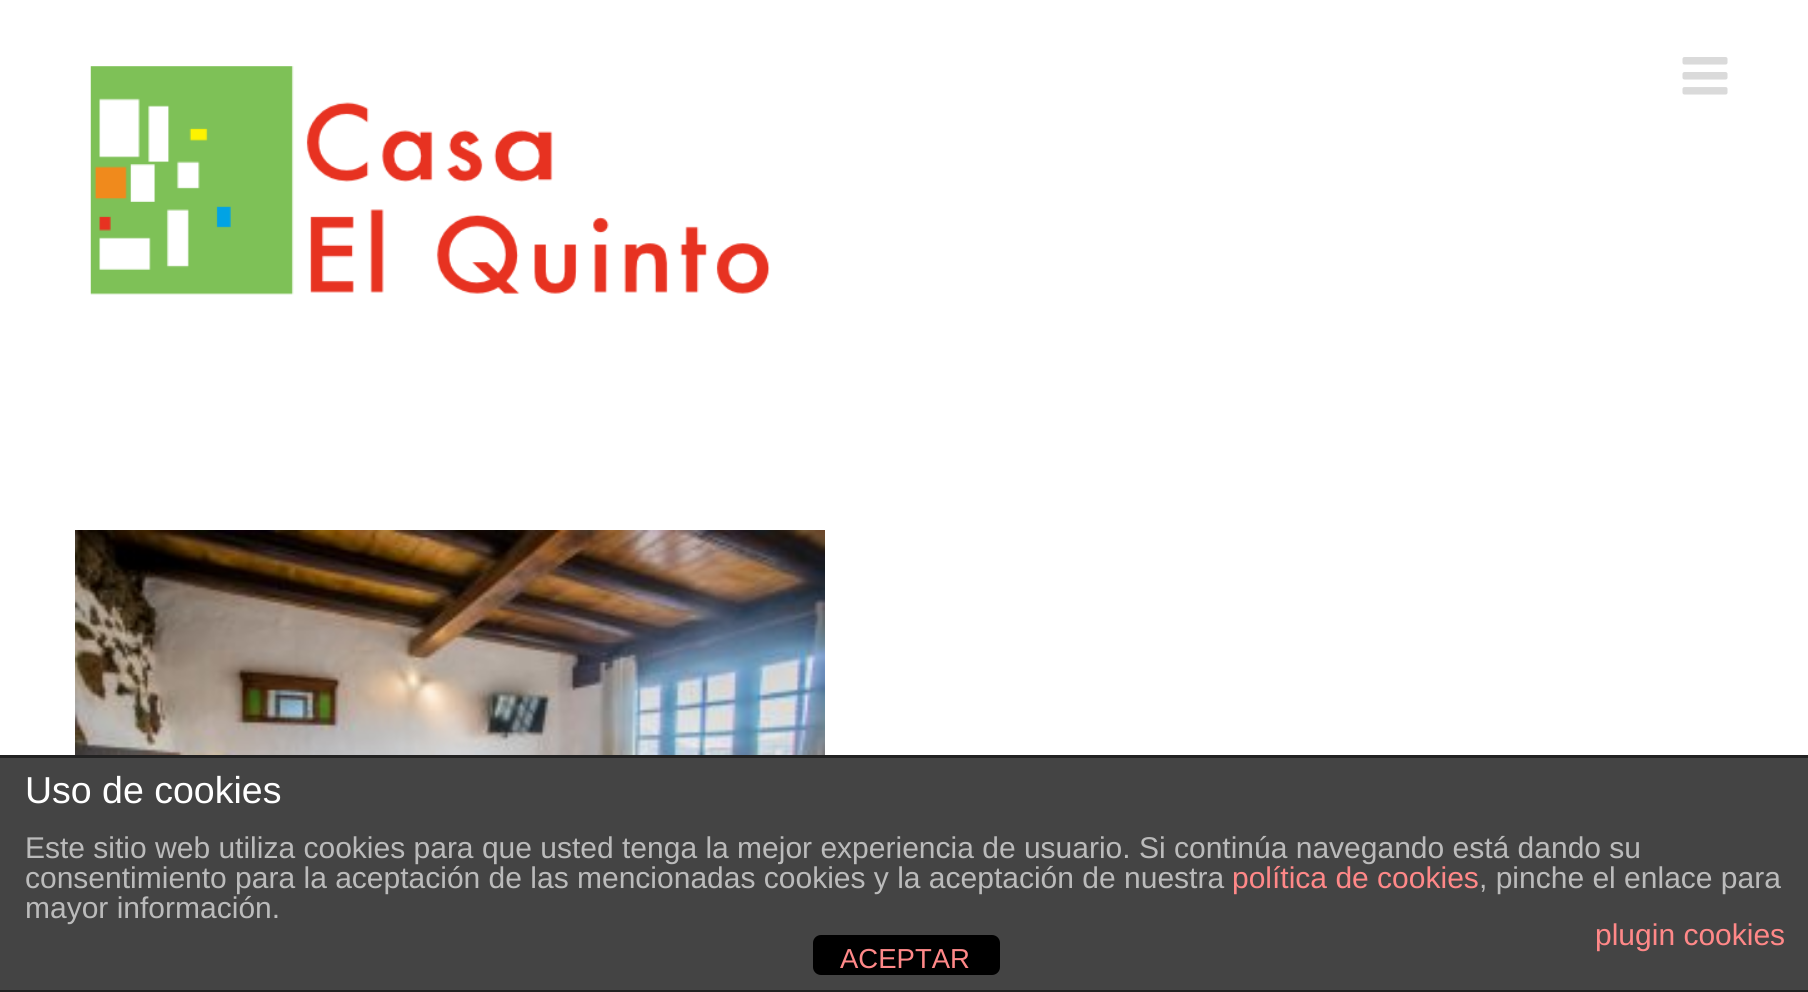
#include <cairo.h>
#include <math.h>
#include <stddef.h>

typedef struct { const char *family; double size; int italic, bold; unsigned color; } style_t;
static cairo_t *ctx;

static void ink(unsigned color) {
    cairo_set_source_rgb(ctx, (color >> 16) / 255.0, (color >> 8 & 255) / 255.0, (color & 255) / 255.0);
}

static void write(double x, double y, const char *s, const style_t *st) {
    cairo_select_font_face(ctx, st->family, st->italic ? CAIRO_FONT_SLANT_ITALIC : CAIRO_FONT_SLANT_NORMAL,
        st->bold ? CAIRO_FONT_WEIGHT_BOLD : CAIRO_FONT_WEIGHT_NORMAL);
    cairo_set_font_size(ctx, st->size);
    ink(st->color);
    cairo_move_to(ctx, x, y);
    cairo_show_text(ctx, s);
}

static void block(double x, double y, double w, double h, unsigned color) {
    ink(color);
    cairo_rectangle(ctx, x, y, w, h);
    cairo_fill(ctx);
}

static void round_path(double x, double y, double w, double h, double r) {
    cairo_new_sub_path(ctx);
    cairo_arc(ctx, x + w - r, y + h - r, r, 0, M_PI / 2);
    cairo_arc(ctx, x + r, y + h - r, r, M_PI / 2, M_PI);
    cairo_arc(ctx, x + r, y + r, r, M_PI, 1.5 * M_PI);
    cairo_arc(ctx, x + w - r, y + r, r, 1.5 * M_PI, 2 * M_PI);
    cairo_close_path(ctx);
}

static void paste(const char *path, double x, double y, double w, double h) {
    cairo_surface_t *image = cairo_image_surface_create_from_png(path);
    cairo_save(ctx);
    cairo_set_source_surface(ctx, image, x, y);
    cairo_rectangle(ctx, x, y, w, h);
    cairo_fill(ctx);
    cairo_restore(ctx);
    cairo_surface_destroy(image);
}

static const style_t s1 = {"Liberation Sans", 37.5, 0, 0, 0xffffff};
static const style_t s2 = {"Liberation Sans", 30, 0, 0, 0xbbbbbb};
static const style_t s3 = {"Liberation Sans", 30, 0, 0, 0xff8888};
static const style_t s4 = {"Liberation Sans", 27.5, 0, 0, 0xff8888};

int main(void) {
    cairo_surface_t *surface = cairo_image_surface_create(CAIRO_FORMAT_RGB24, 1808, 992);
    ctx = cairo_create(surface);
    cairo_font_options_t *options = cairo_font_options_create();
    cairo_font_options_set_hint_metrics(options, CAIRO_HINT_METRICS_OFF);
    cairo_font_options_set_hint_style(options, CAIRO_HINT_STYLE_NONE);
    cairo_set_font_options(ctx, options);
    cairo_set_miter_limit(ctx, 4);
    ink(0xffffff);
    cairo_paint(ctx);
    paste("pic1.png", 90, 66, 680, 229);
    paste("pic2.png", 1682, 57, 46, 38);
    paste("pic3.png", 75, 530, 750, 225);
    block(0, 758, 1808, 232, 0x444444);
    block(0, 755, 1808, 3, 0x222222);
    block(0, 990, 1808, 2, 0x222222);
    write(25, 803, "Uso de cookies", &s1);
    write(25, 858, "Este sitio web utiliza cookies para que usted tenga la mejor experiencia de usuario. Si continúa navegando está dando su", &s2);
    write(25, 888, "consentimiento para la aceptación de las mencionadas cookies y la aceptación de nuestra", &s2);
    write(1232, 888, "política de cookies", &s3);
    write(1479, 888, ", pinche el enlace para", &s2);
    write(25, 918, "mayor información.", &s2);
    write(1595, 945, "plugin cookies", &s3);
    ink(0x000000);
    round_path(813, 935, 187, 40, 8);
    cairo_fill(ctx);
    write(840, 968, "ACEPTAR", &s4);
    cairo_surface_write_to_png(surface, "screenshot.png");
    cairo_font_options_destroy(options);
    cairo_destroy(ctx);
    cairo_surface_destroy(surface);
    return 0;
}
